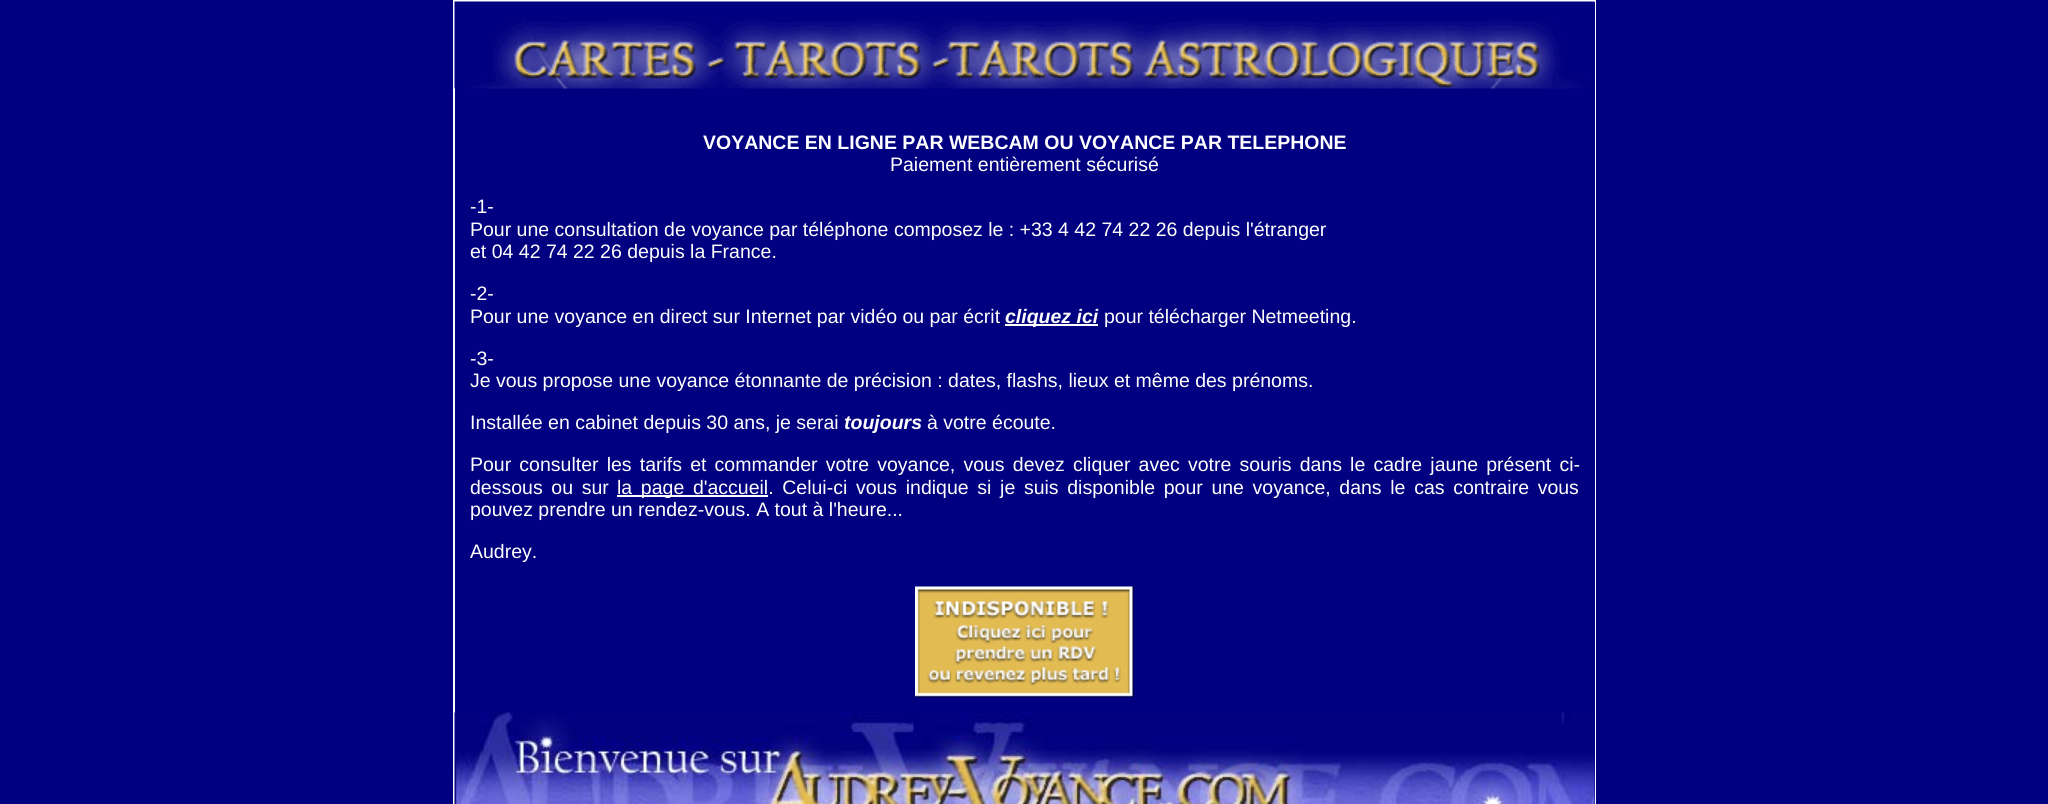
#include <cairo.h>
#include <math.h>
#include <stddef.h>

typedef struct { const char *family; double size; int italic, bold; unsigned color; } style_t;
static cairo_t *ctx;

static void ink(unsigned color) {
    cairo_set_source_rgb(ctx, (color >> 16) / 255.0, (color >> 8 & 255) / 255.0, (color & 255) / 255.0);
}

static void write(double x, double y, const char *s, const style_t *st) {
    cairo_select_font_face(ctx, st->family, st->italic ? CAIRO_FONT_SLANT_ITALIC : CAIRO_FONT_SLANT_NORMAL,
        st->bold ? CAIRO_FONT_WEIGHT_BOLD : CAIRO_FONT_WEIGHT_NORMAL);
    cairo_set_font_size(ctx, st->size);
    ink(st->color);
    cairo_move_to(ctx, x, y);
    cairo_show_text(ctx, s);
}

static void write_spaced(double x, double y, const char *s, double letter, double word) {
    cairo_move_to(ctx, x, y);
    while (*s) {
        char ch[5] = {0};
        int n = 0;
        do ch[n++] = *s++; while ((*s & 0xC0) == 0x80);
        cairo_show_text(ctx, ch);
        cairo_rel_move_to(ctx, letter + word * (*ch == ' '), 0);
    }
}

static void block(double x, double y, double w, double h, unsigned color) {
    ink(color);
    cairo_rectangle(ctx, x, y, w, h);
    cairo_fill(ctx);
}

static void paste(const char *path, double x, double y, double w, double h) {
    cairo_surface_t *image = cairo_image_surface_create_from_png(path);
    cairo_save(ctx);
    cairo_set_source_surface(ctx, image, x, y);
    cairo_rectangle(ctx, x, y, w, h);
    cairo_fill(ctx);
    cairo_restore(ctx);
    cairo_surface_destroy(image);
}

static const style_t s1 = {"Liberation Sans", 19.5, 0, 1, 0xffffff};
static const style_t s2 = {"Liberation Sans", 19.5, 0, 0, 0xffffff};
static const style_t s3 = {"Liberation Sans", 19.5, 1, 1, 0xffffff};

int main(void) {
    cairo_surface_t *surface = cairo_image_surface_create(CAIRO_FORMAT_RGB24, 2048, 804);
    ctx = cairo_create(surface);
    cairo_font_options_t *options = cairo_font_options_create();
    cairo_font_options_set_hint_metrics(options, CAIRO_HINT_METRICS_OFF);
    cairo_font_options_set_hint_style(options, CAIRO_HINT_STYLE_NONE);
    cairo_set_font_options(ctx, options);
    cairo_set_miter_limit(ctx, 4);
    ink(0x010080);
    cairo_paint(ctx);
    block(453, 0, 1143, 804, 0xffffff);
    block(455, 2, 1140, 802, 0x010080);
    paste("pic1.png", 454, 1, 1141, 88);
    write(703, 149, "VOYANCE EN LIGNE PAR WEBCAM OU VOYANCE PAR TELEPHONE", &s1);
    write(890, 171, "Paiement entièrement sécurisé", &s2);
    write(470, 213, "-1-", &s2);
    write(470, 236, "Pour une consultation de voyance par téléphone composez le : +33 4 42 74 22 26 depuis l'étranger", &s2);
    write(470, 258, "et 04 42 74 22 26 depuis la France.", &s2);
    write(470, 300, "-2-", &s2);
    write(470, 323, "Pour une voyance en direct sur Internet par vidéo ou par écrit", &s2);
    block(1005, 324, 93, 2, 0xffffff);
    write(1005, 323, "cliquez ici", &s3);
    write(1104, 323, "pour télécharger Netmeeting.", &s2);
    write(470, 365, "-3-", &s2);
    write(470, 387, "Je vous propose une voyance étonnante de précision : dates, flashs, lieux et même des prénoms.", &s2);
    write(470, 429, "Installée en cabinet depuis 30 ans, je serai", &s2);
    write(844, 429, "toujours", &s3);
    write(927, 429, "à votre écoute.", &s2);
    write_spaced(470, 471, "Pour consulter les tarifs et commander votre voyance, vous devez cliquer avec votre souris dans le cadre jaune présent ci-", 0, 2.75);
    write_spaced(470, 494, "dessous ou sur", 0, 3.25);
    block(617, 495, 151, 2, 0xffffff);
    write_spaced(617, 494, "la page d'accueil. Celui-ci vous indique si je suis disponible pour une voyance, dans le cas contraire vous", 0, 3.25);
    write(470, 516, "pouvez prendre un rendez-vous. A tout à l'heure...", &s2);
    write(470, 558, "Audrey.", &s2);
    paste("pic2.png", 915, 586, 219, 112);
    paste("pic3.png", 454, 712, 1141, 92);
    cairo_surface_write_to_png(surface, "screenshot.png");
    cairo_font_options_destroy(options);
    cairo_destroy(ctx);
    cairo_surface_destroy(surface);
    return 0;
}
